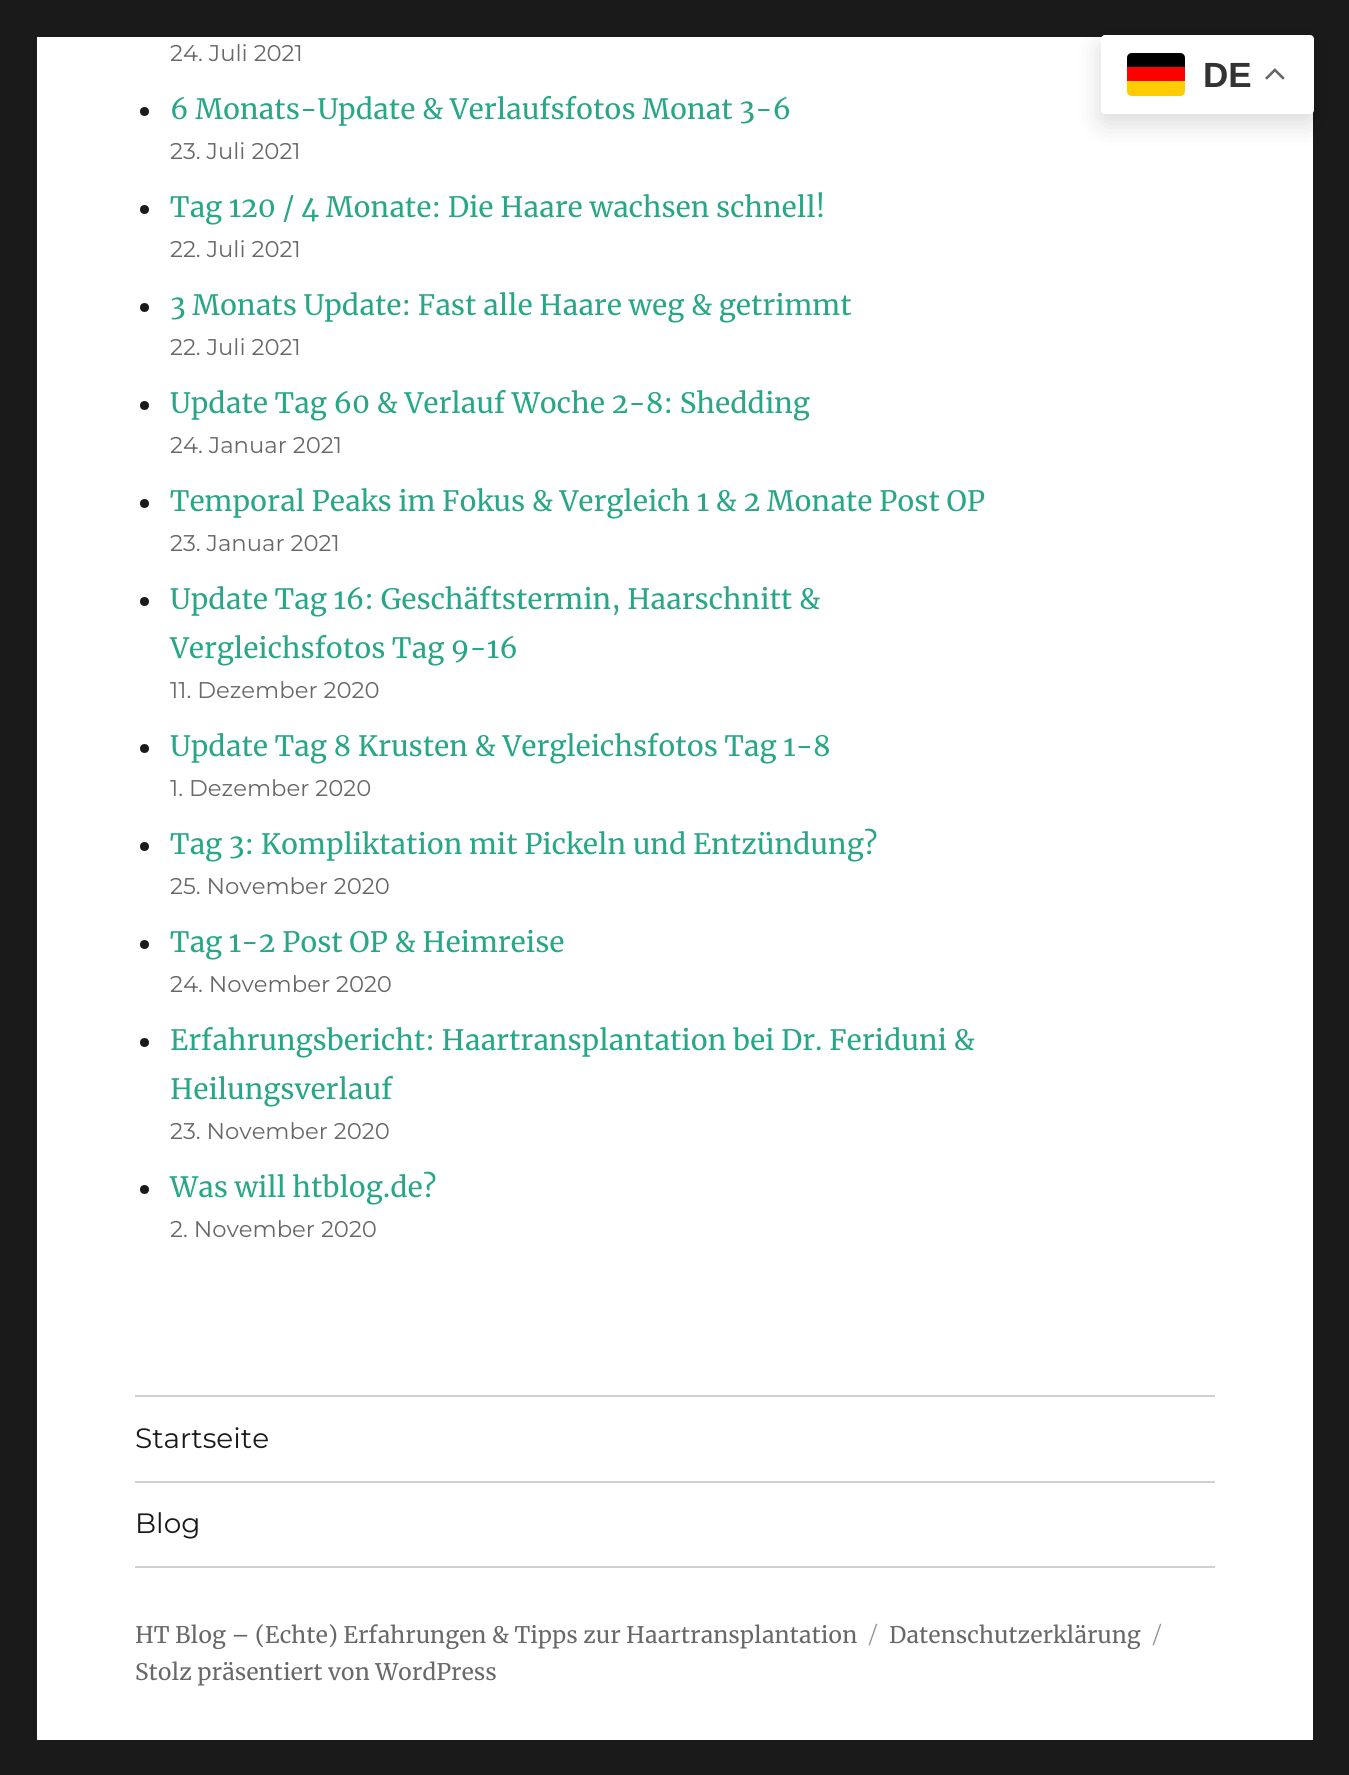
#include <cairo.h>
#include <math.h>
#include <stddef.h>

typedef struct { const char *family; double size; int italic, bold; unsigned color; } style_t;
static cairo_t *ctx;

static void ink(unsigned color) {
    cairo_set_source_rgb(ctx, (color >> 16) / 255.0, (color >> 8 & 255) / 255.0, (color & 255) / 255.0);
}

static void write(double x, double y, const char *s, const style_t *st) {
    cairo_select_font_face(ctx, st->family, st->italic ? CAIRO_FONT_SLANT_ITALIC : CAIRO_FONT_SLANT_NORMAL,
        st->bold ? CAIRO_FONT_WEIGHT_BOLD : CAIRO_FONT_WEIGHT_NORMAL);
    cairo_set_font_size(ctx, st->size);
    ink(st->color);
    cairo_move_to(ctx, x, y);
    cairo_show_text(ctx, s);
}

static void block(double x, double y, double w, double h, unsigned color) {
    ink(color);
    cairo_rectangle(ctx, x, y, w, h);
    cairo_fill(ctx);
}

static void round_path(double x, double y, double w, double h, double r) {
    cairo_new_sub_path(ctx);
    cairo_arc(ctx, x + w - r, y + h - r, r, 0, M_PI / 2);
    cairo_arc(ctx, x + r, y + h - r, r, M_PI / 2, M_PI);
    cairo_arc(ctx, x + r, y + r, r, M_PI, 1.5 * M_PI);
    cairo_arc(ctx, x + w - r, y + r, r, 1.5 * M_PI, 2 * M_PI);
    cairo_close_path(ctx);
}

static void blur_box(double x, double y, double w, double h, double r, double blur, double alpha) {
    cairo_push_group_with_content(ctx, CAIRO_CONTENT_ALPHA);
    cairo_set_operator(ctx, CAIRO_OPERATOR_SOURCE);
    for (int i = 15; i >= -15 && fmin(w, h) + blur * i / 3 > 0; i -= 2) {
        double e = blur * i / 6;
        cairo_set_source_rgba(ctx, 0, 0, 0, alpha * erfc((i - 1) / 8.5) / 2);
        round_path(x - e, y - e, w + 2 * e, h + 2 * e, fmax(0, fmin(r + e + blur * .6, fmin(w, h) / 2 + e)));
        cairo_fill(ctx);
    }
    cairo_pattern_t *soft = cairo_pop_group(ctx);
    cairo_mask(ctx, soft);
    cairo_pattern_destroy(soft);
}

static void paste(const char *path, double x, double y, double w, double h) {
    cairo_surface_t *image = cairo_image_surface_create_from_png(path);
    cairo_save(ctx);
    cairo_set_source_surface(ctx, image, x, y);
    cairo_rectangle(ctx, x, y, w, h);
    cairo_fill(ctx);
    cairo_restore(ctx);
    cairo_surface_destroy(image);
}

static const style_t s1 = {"Montserrat Thin", 22.75, 0, 0, 0x686868};
static const style_t s2 = {"Merriweather", 28, 0, 0, 0x28a687};
static const style_t s3 = {"Montserrat Thin", 28, 0, 0, 0x1a1a1a};
static const style_t s4 = {"Merriweather", 22.75, 0, 0, 0x686868};
static const style_t s5 = {"Montserrat Thin", 22.75, 0, 0, 0x959595};
static const style_t s6 = {"Liberation Sans", 35, 0, 1, 0x333333};

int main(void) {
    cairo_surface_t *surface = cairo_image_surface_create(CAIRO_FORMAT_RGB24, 1349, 1775);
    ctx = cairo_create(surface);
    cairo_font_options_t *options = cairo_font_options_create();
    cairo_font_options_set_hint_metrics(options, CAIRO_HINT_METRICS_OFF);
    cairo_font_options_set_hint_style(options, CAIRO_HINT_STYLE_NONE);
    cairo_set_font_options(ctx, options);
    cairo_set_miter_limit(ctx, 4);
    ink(0x1a1a1a);
    cairo_paint(ctx);
    block(37, 37, 1276, 1703, 0xffffff);
    write(170, 61, "24. Juli 2021", &s1);
    ink(0x1a1a1a);
    cairo_new_path(ctx);
    cairo_arc(ctx, 144.5, 111.5, 4.5, 0, 2 * M_PI);
    cairo_fill(ctx);
    write(170, 119, "6 Monats-Update & Verlaufsfotos Monat 3-6", &s2);
    write(170, 159, "23. Juli 2021", &s1);
    ink(0x1a1a1a);
    cairo_new_path(ctx);
    cairo_arc(ctx, 144.5, 209.5, 4.5, 0, 2 * M_PI);
    cairo_fill(ctx);
    write(170, 217, "Tag 120 / 4 Monate: Die Haare wachsen schnell!", &s2);
    write(170, 257, "22. Juli 2021", &s1);
    ink(0x1a1a1a);
    cairo_new_path(ctx);
    cairo_arc(ctx, 144.5, 307.5, 4.5, 0, 2 * M_PI);
    cairo_fill(ctx);
    write(170, 315, "3 Monats Update: Fast alle Haare weg & getrimmt", &s2);
    write(170, 355, "22. Juli 2021", &s1);
    ink(0x1a1a1a);
    cairo_new_path(ctx);
    cairo_arc(ctx, 144.5, 405.5, 4.5, 0, 2 * M_PI);
    cairo_fill(ctx);
    write(170, 413, "Update Tag 60 & Verlauf Woche 2-8: Shedding", &s2);
    write(170, 453, "24. Januar 2021", &s1);
    ink(0x1a1a1a);
    cairo_new_path(ctx);
    cairo_arc(ctx, 144.5, 503.5, 4.5, 0, 2 * M_PI);
    cairo_fill(ctx);
    write(170, 511, "Temporal Peaks im Fokus & Vergleich 1 & 2 Monate Post OP", &s2);
    write(170, 551, "23. Januar 2021", &s1);
    ink(0x1a1a1a);
    cairo_new_path(ctx);
    cairo_arc(ctx, 144.5, 601.5, 4.5, 0, 2 * M_PI);
    cairo_fill(ctx);
    write(170, 609, "Update Tag 16: Geschäftstermin, Haarschnitt &", &s2);
    write(170, 658, "Vergleichsfotos Tag 9-16", &s2);
    write(170, 698, "11. Dezember 2020", &s1);
    ink(0x1a1a1a);
    cairo_new_path(ctx);
    cairo_arc(ctx, 144.5, 748.5, 4.5, 0, 2 * M_PI);
    cairo_fill(ctx);
    write(170, 756, "Update Tag 8 Krusten & Vergleichsfotos Tag 1-8", &s2);
    write(170, 796, "1. Dezember 2020", &s1);
    ink(0x1a1a1a);
    cairo_new_path(ctx);
    cairo_arc(ctx, 144.5, 846.5, 4.5, 0, 2 * M_PI);
    cairo_fill(ctx);
    write(170, 854, "Tag 3: Kompliktation mit Pickeln und Entzündung?", &s2);
    write(170, 894, "25. November 2020", &s1);
    ink(0x1a1a1a);
    cairo_new_path(ctx);
    cairo_arc(ctx, 144.5, 944.5, 4.5, 0, 2 * M_PI);
    cairo_fill(ctx);
    write(170, 952, "Tag 1-2 Post OP & Heimreise", &s2);
    write(170, 992, "24. November 2020", &s1);
    ink(0x1a1a1a);
    cairo_new_path(ctx);
    cairo_arc(ctx, 144.5, 1042.5, 4.5, 0, 2 * M_PI);
    cairo_fill(ctx);
    write(170, 1050, "Erfahrungsbericht: Haartransplantation bei Dr. Feriduni &", &s2);
    write(170, 1099, "Heilungsverlauf", &s2);
    write(170, 1139, "23. November 2020", &s1);
    ink(0x1a1a1a);
    cairo_new_path(ctx);
    cairo_arc(ctx, 144.5, 1189.5, 4.5, 0, 2 * M_PI);
    cairo_fill(ctx);
    write(170, 1197, "Was will htblog.de?", &s2);
    write(170, 1237, "2. November 2020", &s1);
    block(135, 1566, 1080, 2, 0xd1d1d1);
    block(135, 1395, 1080, 2, 0xd1d1d1);
    write(135, 1448, "Startseite", &s3);
    block(135, 1481, 1080, 2, 0xd1d1d1);
    write(135, 1533, "Blog", &s3);
    write(135, 1643, "HT Blog – (Echte) Erfahrungen & Tipps zur Haartransplantation", &s4);
    write(869, 1643, "/", &s5);
    write(889, 1643, "Datenschutzerklärung", &s4);
    write(1153, 1643, "/", &s5);
    write(135, 1680, "Stolz präsentiert von WordPress", &s4);
    ink(0x000000);
    blur_box(1101, 44, 213, 79, 4, 13, 0.15);
    ink(0xffffff);
    round_path(1101, 35, 213, 79, 4);
    cairo_fill(ctx);
    ink(0xffcc00);
    cairo_new_path(ctx);
    cairo_move_to(ctx, 1127, 81);
    cairo_line_to(ctx, 1185, 81);
    cairo_line_to(ctx, 1185, 91);
    cairo_curve_to(ctx, 1185, 94, 1183, 96, 1180, 96);
    cairo_line_to(ctx, 1132, 96);
    cairo_curve_to(ctx, 1129, 96, 1127, 94, 1127, 91);
    cairo_close_path(ctx);
    cairo_fill(ctx);
    ink(0x000000);
    cairo_new_path(ctx);
    cairo_move_to(ctx, 1132, 53);
    cairo_line_to(ctx, 1180, 53);
    cairo_curve_to(ctx, 1183, 53, 1185, 55, 1185, 58);
    cairo_line_to(ctx, 1185, 67);
    cairo_line_to(ctx, 1127, 67);
    cairo_line_to(ctx, 1127, 58);
    cairo_curve_to(ctx, 1127, 55, 1129, 53, 1132, 53);
    cairo_close_path(ctx);
    cairo_fill(ctx);
    block(1127, 67, 58, 14, 0xff0000);
    write(1203, 87, "DE", &s6);
    paste("pic1.png", 1265, 68, 20, 12);
    cairo_surface_write_to_png(surface, "screenshot.png");
    cairo_font_options_destroy(options);
    cairo_destroy(ctx);
    cairo_surface_destroy(surface);
    return 0;
}
